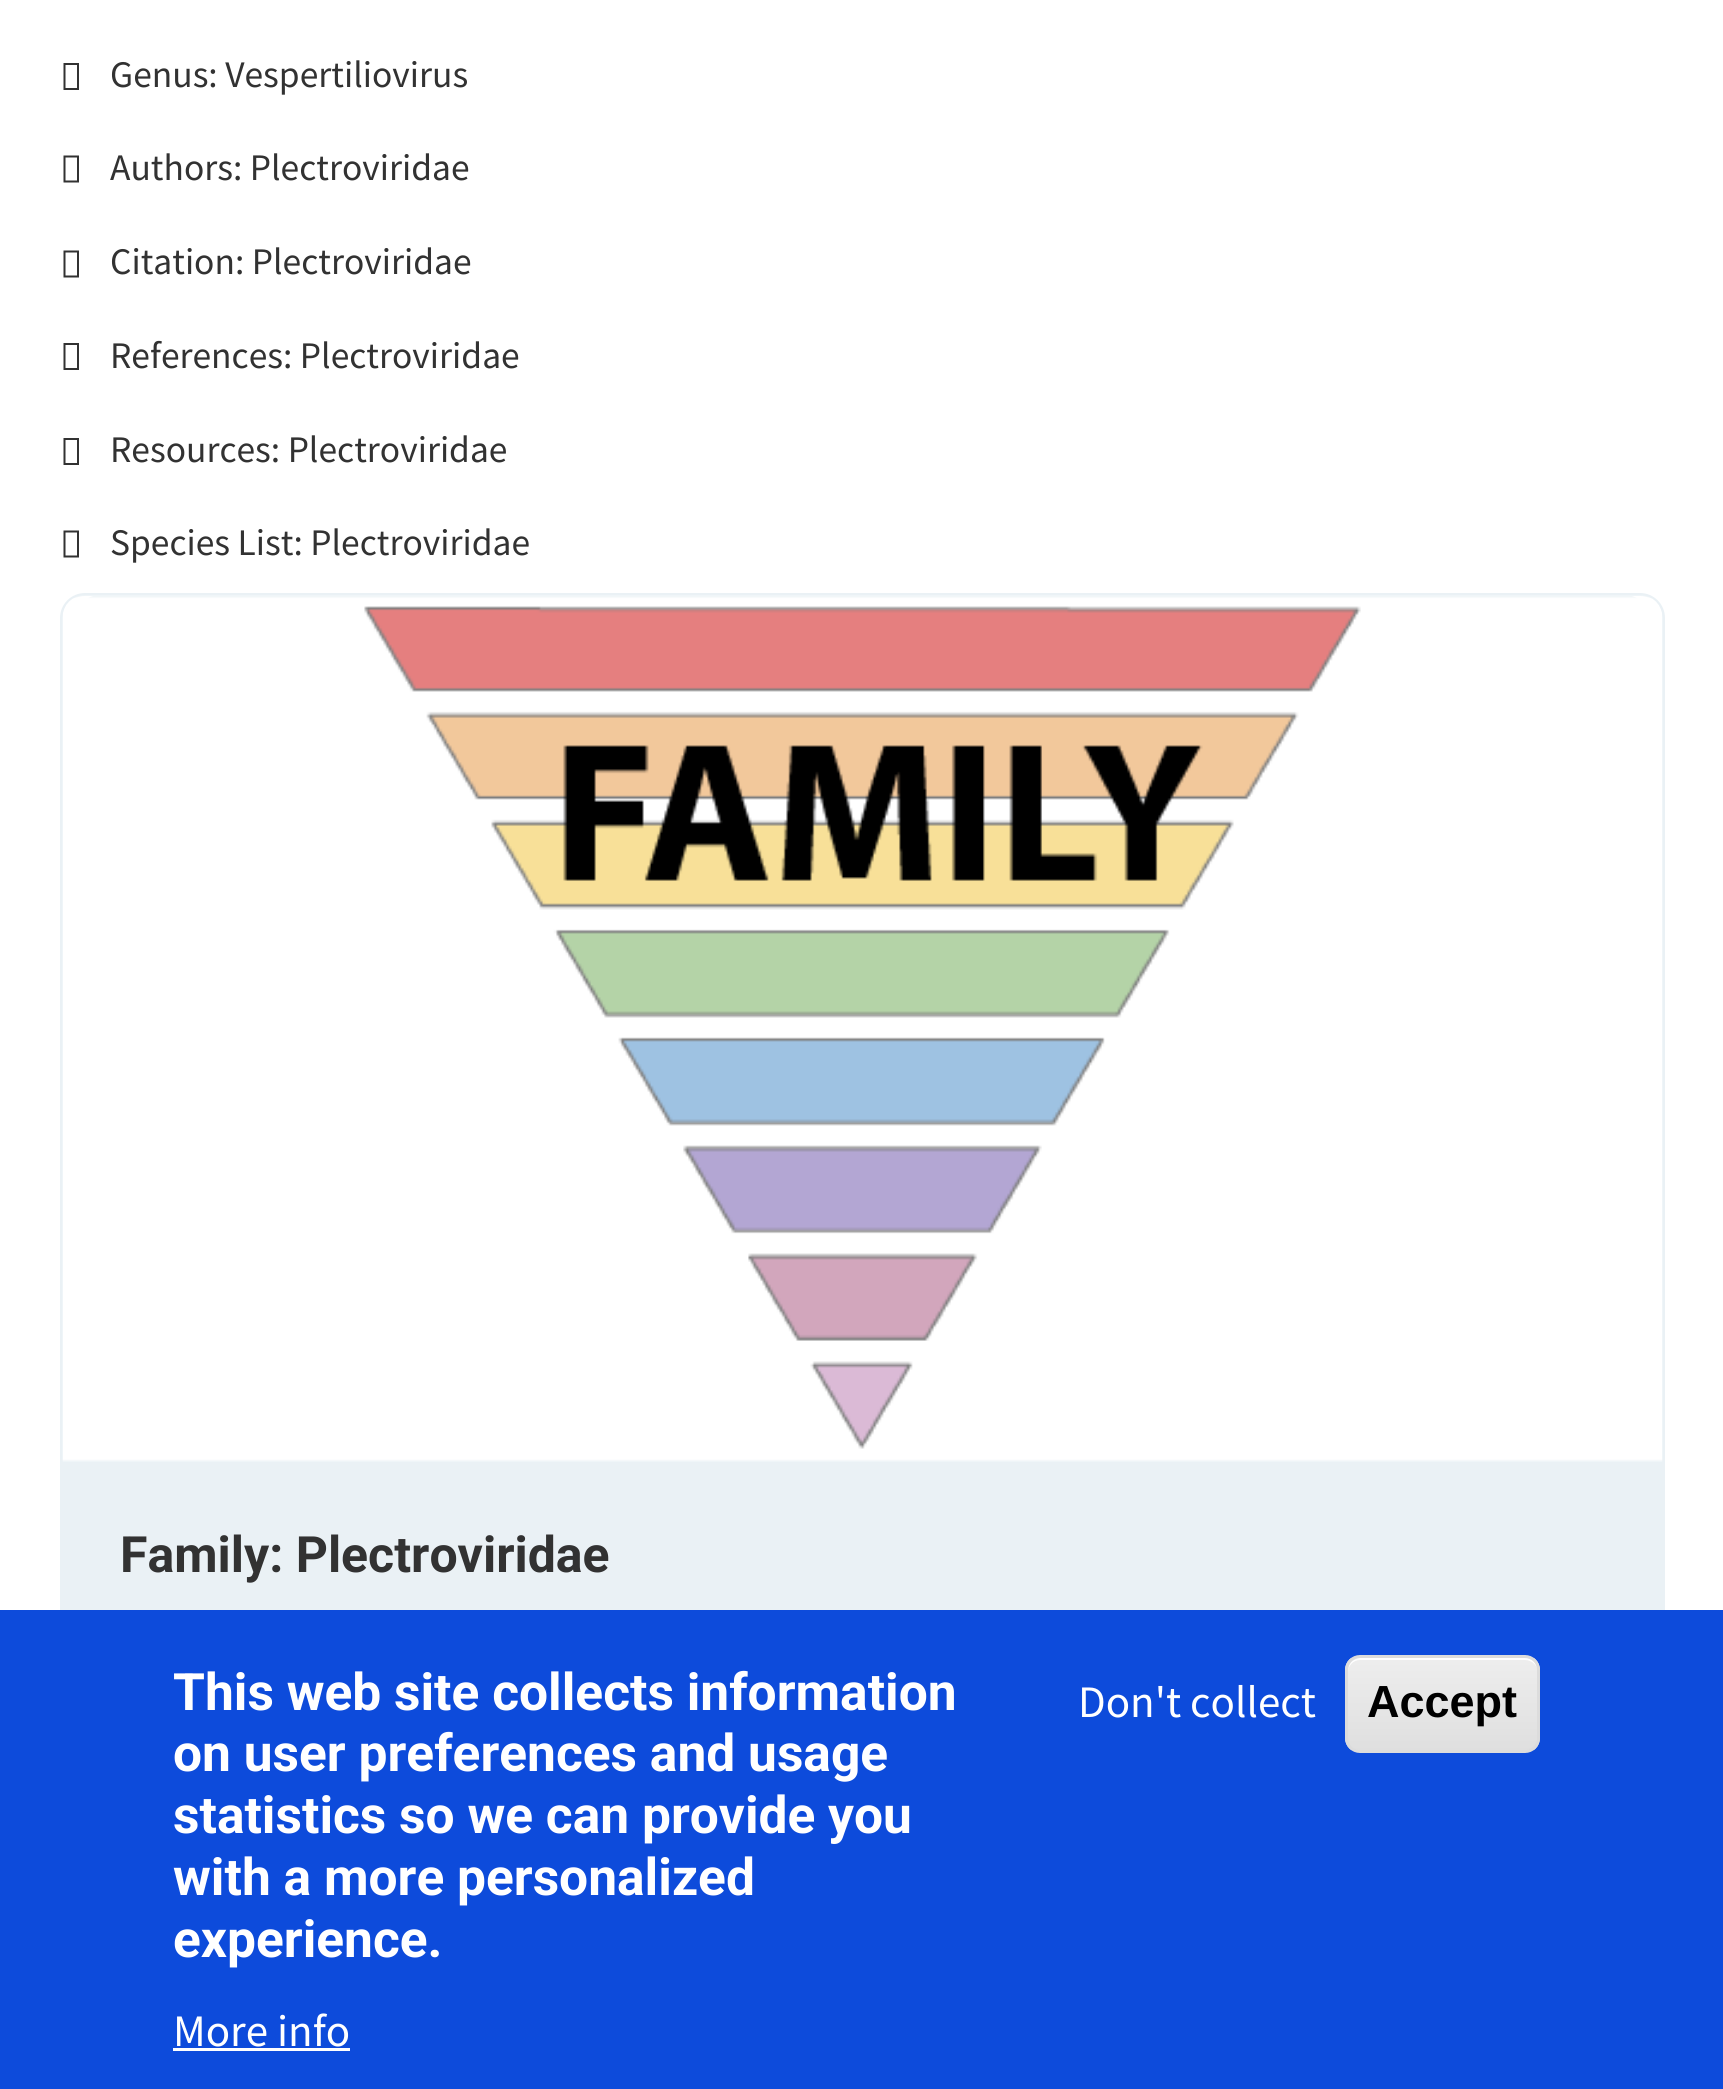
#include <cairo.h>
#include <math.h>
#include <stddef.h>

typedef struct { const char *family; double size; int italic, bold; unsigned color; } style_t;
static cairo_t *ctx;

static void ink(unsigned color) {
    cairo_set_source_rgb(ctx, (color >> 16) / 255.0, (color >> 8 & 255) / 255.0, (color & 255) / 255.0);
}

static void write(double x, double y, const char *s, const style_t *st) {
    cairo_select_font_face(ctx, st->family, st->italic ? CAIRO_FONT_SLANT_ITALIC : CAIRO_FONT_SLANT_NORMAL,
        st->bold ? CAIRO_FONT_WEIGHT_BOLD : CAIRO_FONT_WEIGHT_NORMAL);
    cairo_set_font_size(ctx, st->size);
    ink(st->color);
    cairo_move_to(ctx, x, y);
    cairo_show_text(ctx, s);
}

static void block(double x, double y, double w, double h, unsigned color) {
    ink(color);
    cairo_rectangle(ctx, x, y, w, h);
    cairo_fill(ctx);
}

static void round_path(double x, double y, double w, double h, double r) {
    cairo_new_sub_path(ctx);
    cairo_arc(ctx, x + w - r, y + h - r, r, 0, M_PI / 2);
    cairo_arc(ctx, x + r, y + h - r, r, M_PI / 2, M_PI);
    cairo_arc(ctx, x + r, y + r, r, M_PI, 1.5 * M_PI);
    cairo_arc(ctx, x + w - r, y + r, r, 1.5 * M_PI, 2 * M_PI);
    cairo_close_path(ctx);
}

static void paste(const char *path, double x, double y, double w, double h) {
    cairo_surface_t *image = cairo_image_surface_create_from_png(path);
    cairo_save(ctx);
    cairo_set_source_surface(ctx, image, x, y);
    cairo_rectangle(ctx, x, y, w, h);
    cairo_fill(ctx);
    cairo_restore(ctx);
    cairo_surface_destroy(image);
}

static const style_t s1 = {"Source Sans Pro", 37.5, 0, 0, 0x323232};
static const style_t s2 = {"Roboto", 50, 0, 1, 0x323232};
static const style_t s3 = {"Roboto", 51.5, 0, 1, 0xffffff};
static const style_t s4 = {"Source Sans Pro", 45, 0, 0, 0xffffff};
static const style_t s5 = {"Liberation Sans", 45, 0, 1, 0x000000};

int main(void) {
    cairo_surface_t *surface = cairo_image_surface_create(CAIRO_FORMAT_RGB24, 1723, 2089);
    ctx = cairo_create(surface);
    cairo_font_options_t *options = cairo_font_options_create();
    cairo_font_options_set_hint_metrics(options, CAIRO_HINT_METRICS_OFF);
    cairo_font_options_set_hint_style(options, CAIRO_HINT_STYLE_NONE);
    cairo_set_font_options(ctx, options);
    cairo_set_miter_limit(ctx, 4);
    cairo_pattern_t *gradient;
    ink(0xffffff);
    cairo_paint(ctx);
    ink(0x323232);
    cairo_new_path(ctx);
    cairo_move_to(ctx, 63.5, 90);
    cairo_line_to(ctx, 63.5, 63);
    cairo_line_to(ctx, 79, 63);
    cairo_line_to(ctx, 79, 90);
    cairo_close_path(ctx);
    cairo_move_to(ctx, 65.5, 88);
    cairo_line_to(ctx, 77, 88);
    cairo_line_to(ctx, 77, 65);
    cairo_line_to(ctx, 65.5, 65);
    cairo_close_path(ctx);
    cairo_fill(ctx);
    write(110, 87, "Genus: Vespertiliovirus", &s1);
    cairo_new_path(ctx);
    cairo_move_to(ctx, 63.5, 182.5);
    cairo_line_to(ctx, 63.5, 155.5);
    cairo_line_to(ctx, 79, 155.5);
    cairo_line_to(ctx, 79, 182.5);
    cairo_close_path(ctx);
    cairo_move_to(ctx, 65.5, 180.5);
    cairo_line_to(ctx, 77, 180.5);
    cairo_line_to(ctx, 77, 157.5);
    cairo_line_to(ctx, 65.5, 157.5);
    cairo_close_path(ctx);
    cairo_fill(ctx);
    write(110, 180, "Authors: Plectroviridae", &s1);
    cairo_new_path(ctx);
    cairo_move_to(ctx, 63.5, 277.5);
    cairo_line_to(ctx, 63.5, 250.5);
    cairo_line_to(ctx, 79, 250.5);
    cairo_line_to(ctx, 79, 277.5);
    cairo_close_path(ctx);
    cairo_move_to(ctx, 65.5, 275.5);
    cairo_line_to(ctx, 77, 275.5);
    cairo_line_to(ctx, 77, 252.5);
    cairo_line_to(ctx, 65.5, 252.5);
    cairo_close_path(ctx);
    cairo_fill(ctx);
    write(110, 274, "Citation: Plectroviridae", &s1);
    cairo_new_path(ctx);
    cairo_move_to(ctx, 63.5, 370);
    cairo_line_to(ctx, 63.5, 343);
    cairo_line_to(ctx, 79, 343);
    cairo_line_to(ctx, 79, 370);
    cairo_close_path(ctx);
    cairo_move_to(ctx, 65.5, 368);
    cairo_line_to(ctx, 77, 368);
    cairo_line_to(ctx, 77, 345);
    cairo_line_to(ctx, 65.5, 345);
    cairo_close_path(ctx);
    cairo_fill(ctx);
    write(110, 368, "References: Plectroviridae", &s1);
    cairo_new_path(ctx);
    cairo_move_to(ctx, 63.5, 465);
    cairo_line_to(ctx, 63.5, 438);
    cairo_line_to(ctx, 79, 438);
    cairo_line_to(ctx, 79, 465);
    cairo_close_path(ctx);
    cairo_move_to(ctx, 65.5, 463);
    cairo_line_to(ctx, 77, 463);
    cairo_line_to(ctx, 77, 440);
    cairo_line_to(ctx, 65.5, 440);
    cairo_close_path(ctx);
    cairo_fill(ctx);
    write(110, 462, "Resources: Plectroviridae", &s1);
    cairo_new_path(ctx);
    cairo_move_to(ctx, 63.5, 557.5);
    cairo_line_to(ctx, 63.5, 530.5);
    cairo_line_to(ctx, 79, 530.5);
    cairo_line_to(ctx, 79, 557.5);
    cairo_close_path(ctx);
    cairo_move_to(ctx, 65.5, 555.5);
    cairo_line_to(ctx, 77, 555.5);
    cairo_line_to(ctx, 77, 532.5);
    cairo_line_to(ctx, 65.5, 532.5);
    cairo_close_path(ctx);
    cairo_fill(ctx);
    write(110, 555, "Species List: Plectroviridae", &s1);
    ink(0xeaf1f5);
    round_path(60, 593, 1605, 1152, 50);
    cairo_fill(ctx);
    cairo_new_path(ctx);
    cairo_move_to(ctx, 85, 594.5);
    cairo_line_to(ctx, 1640, 594.5);
    cairo_curve_to(ctx, 1653, 594.5, 1663.5, 605, 1663.5, 618);
    cairo_line_to(ctx, 1663.5, 1463.5);
    cairo_line_to(ctx, 61.5, 1463.5);
    cairo_line_to(ctx, 61.5, 618);
    cairo_curve_to(ctx, 61.5, 605, 72, 594.5, 85, 594.5);
    cairo_close_path(ctx);
    cairo_set_line_width(ctx, 3);
    cairo_stroke(ctx);
    paste("pic1.png", 62, 595, 1601, 867);
    write(120, 1572, "Family: Plectroviridae", &s2);
    block(0, 1610, 1723, 479, 0x0d4bdb);
    write(173, 1710, "This web site collects information", &s3);
    write(173, 1771, "on user preferences and usage", &s3);
    write(173, 1833, "statistics so we can provide you", &s3);
    write(173, 1895, "with a more personalized", &s3);
    write(173, 1957, "experience.", &s3);
    write(173, 2046, "More info", &s4);
    block(173, 2048, 177, 3, 0xffffff);
    write(1078, 1717, "Don't collect", &s4);
    cairo_save(ctx);
    round_path(1345, 1655, 195, 98, 15);
    cairo_clip(ctx);
    gradient = cairo_pattern_create_linear(1443, 1658, 1443, 1750);
    cairo_pattern_add_color_stop_rgba(gradient, 0.05, 0.929, 0.929, 0.929, 1);
    cairo_pattern_add_color_stop_rgba(gradient, 1, 0.875, 0.875, 0.875, 1);
    cairo_set_source(ctx, gradient);
    cairo_pattern_destroy(gradient);
    cairo_rectangle(ctx, 1345, 1658, 195, 92);
    cairo_fill(ctx);
    cairo_restore(ctx);
    cairo_new_path(ctx);
    cairo_move_to(ctx, 1360, 1660);
    cairo_line_to(ctx, 1525, 1660);
    cairo_curve_to(ctx, 1532, 1660, 1538, 1666, 1538, 1672);
    cairo_curve_to(ctx, 1538, 1651, 1509, 1658, 1498, 1658);
    cairo_line_to(ctx, 1388, 1658);
    cairo_curve_to(ctx, 1377, 1658, 1348, 1651, 1348, 1672);
    cairo_curve_to(ctx, 1348, 1666, 1353, 1660, 1360, 1660);
    cairo_close_path(ctx);
    cairo_fill(ctx);
    round_path(1346.5, 1656.5, 192, 95, 13.5);
    ink(0xdcdcdc);
    cairo_stroke(ctx);
    write(1367, 1717, "Accept", &s5);
    cairo_surface_write_to_png(surface, "screenshot.png");
    cairo_font_options_destroy(options);
    cairo_destroy(ctx);
    cairo_surface_destroy(surface);
    return 0;
}
